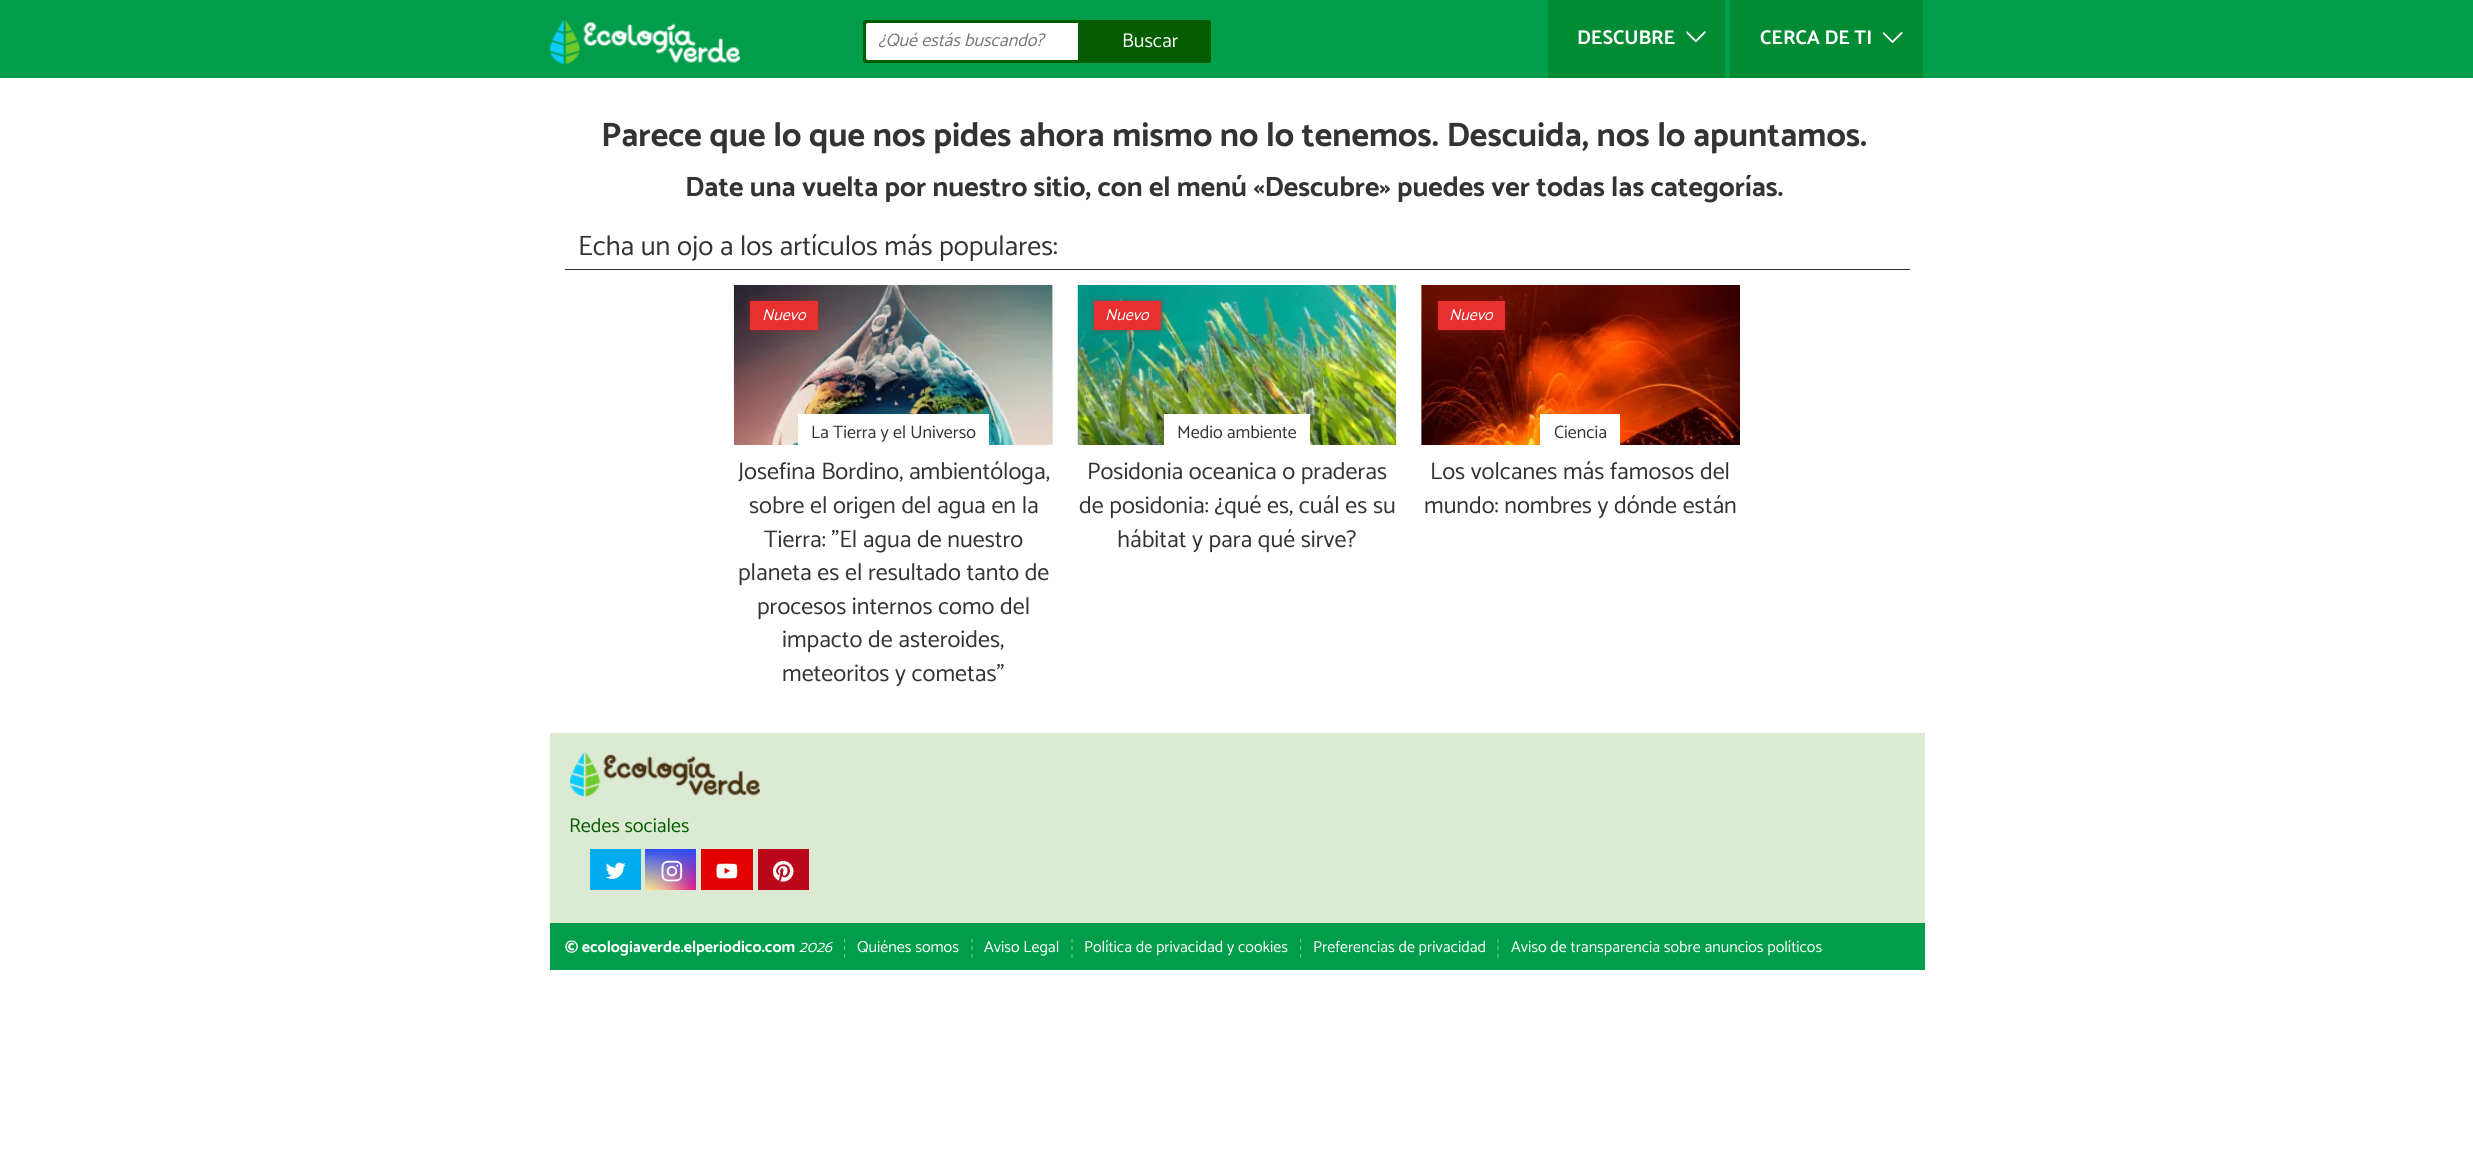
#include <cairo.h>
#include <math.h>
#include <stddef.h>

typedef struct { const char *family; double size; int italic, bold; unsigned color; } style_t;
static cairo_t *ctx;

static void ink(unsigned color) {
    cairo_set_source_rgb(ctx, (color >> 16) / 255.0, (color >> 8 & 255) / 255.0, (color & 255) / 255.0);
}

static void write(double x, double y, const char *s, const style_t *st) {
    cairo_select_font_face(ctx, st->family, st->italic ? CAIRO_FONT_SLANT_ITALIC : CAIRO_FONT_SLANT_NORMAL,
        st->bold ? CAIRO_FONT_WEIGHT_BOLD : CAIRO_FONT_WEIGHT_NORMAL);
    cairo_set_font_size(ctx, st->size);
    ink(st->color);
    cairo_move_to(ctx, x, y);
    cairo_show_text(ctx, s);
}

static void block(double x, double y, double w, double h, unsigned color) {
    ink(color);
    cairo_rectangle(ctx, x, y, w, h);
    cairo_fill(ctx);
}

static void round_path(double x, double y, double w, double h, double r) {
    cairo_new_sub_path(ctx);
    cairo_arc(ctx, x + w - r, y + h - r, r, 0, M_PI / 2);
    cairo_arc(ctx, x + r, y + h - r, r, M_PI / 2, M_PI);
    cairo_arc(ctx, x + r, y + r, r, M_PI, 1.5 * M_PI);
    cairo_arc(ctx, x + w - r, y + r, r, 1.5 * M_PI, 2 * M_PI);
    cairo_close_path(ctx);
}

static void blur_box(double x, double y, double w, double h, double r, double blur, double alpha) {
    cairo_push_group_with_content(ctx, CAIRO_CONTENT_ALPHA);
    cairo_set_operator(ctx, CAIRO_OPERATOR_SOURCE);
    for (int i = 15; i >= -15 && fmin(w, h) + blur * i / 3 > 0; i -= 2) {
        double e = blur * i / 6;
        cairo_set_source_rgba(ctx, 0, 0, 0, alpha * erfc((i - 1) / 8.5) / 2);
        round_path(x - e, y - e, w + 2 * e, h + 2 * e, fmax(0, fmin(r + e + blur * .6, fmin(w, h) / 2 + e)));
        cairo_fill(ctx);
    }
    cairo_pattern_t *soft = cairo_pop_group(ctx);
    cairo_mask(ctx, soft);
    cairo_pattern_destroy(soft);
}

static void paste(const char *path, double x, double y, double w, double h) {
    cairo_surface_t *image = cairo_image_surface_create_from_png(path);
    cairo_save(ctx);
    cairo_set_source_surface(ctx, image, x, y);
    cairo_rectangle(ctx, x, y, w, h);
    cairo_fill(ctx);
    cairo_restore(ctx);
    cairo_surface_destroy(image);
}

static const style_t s1 = {"Catamaran", 18, 1, 0, 0x777777};
static const style_t s2 = {"Catamaran", 20, 0, 0, 0xffffff};
static const style_t s3 = {"Catamaran", 20, 0, 1, 0xffffff};
static const style_t s4 = {"Catamaran", 34, 0, 1, 0x333333};
static const style_t s5 = {"Catamaran", 28, 0, 1, 0x333333};
static const style_t s6 = {"Catamaran", 28, 0, 0, 0x333333};
static const style_t s7 = {"Catamaran", 16, 1, 0, 0xffffff};
static const style_t s8 = {"Catamaran", 18, 0, 0, 0x333333};
static const style_t s9 = {"Catamaran", 24, 0, 0, 0x333333};
static const style_t s10 = {"Catamaran", 20, 0, 0, 0x035d00};
static const style_t s11 = {"Catamaran", 16, 0, 1, 0xffffff};
static const style_t s12 = {"Catamaran", 16, 0, 0, 0xffffff};

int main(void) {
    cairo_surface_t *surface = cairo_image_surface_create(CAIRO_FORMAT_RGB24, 2473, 1174);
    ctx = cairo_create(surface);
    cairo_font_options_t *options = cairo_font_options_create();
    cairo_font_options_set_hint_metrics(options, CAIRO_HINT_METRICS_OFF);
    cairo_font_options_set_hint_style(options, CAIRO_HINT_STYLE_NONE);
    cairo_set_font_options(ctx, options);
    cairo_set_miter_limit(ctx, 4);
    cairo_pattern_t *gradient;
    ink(0xffffff);
    cairo_paint(ctx);
    block(0, 0, 2473, 78, 0x009e4a);
    paste("pic1.png", 549, 20, 191, 44);
    ink(0x035d00);
    round_path(863, 20, 348, 43, 2.5);
    cairo_fill(ctx);
    ink(0xffffff);
    cairo_new_path(ctx);
    cairo_move_to(ctx, 868, 21.5);
    cairo_line_to(ctx, 1079.5, 21.5);
    cairo_line_to(ctx, 1079.5, 61.5);
    cairo_line_to(ctx, 868, 61.5);
    cairo_curve_to(ctx, 866, 61.5, 864.5, 60, 864.5, 58);
    cairo_line_to(ctx, 864.5, 25);
    cairo_curve_to(ctx, 864.5, 23, 866, 21.5, 868, 21.5);
    cairo_close_path(ctx);
    cairo_fill_preserve(ctx);
    ink(0x035d00);
    cairo_set_line_width(ctx, 3);
    cairo_stroke(ctx);
    write(878, 46, "¿Qué estás buscando?", &s1);
    write(1122, 47, "Buscar", &s2);
    block(1548, 0, 177, 78, 0x018b34);
    write(1577, 44, "DESCUBRE", &s3);
    paste("pic2.png", 1686, 31, 20, 12);
    block(1730, 0, 193, 78, 0x018b34);
    write(1760, 44, "CERCA DE TI", &s3);
    paste("pic3.png", 1883, 32, 20, 11);
    write(601, 146, "Parece que lo que nos pides ahora mismo no lo tenemos. Descuida, nos lo apuntamos.", &s4);
    write(685, 196, "Date una vuelta por nuestro sitio, con el menú «Descubre» puedes ver todas las categorías.", &s5);
    block(565, 269, 1345, 1, 0x333333);
    write(578, 255, "Echa un ojo a los artículos más populares:", &s6);
    block(1052, 285, 1, 160, 0xdcead4);
    paste("pic4.png", 733, 285, 320, 160);
    ink(0xb31a1a);
    blur_box(750, 301, 68, 29, 0, 3, 0.5);
    block(750, 301, 68, 29, 0xe83030);
    write(762, 320, "Nuevo", &s7);
    block(798, 414, 191, 31, 0xffffff);
    write(811, 438, "La Tierra y el Universo", &s8);
    write(738, 479, "Josefina Bordino, ambientóloga,", &s9);
    write(749, 513, "sobre el origen del agua en la", &s9);
    write(764, 547, "Tierra: \"El agua de nuestro", &s9);
    write(738, 580, "planeta es el resultado tanto de", &s9);
    write(757, 614, "procesos internos como del", &s9);
    write(782, 647, "impacto de asteroides,", &s9);
    write(782, 681, "meteoritos y cometas\"", &s9);
    paste("pic5.png", 1077, 285, 320, 160);
    ink(0xb31a1a);
    blur_box(1094, 301, 67, 29, 0, 3, 0.5);
    block(1094, 301, 67, 29, 0xe83030);
    write(1105, 320, "Nuevo", &s7);
    block(1164, 414, 146, 31, 0xffffff);
    write(1177, 438, "Medio ambiente", &s8);
    write(1087, 479, "Posidonia oceanica o praderas", &s9);
    write(1079, 513, "de posidonia: ¿qué es, cuál es su", &s9);
    write(1117, 547, "hábitat y para qué sirve?", &s9);
    block(1421, 285, 1, 160, 0xdcead4);
    paste("pic6.png", 1421, 285, 319, 160);
    ink(0xb31a1a);
    blur_box(1438, 301, 67, 29, 0, 3, 0.5);
    block(1438, 301, 67, 29, 0xe83030);
    write(1449, 320, "Nuevo", &s7);
    block(1540, 414, 80, 31, 0xffffff);
    write(1554, 438, "Ciencia", &s8);
    write(1430, 479, "Los volcanes más famosos del", &s9);
    write(1424, 513, "mundo: nombres y dónde están", &s9);
    block(550, 733, 1375, 190, 0xdcead4);
    paste("pic7.png", 570, 752, 190, 45);
    write(569, 832, "Redes sociales", &s10);
    block(590, 849, 51, 41, 0x00aced);
    paste("pic8.png", 605, 862, 21, 18);
    gradient = cairo_pattern_create_linear(696, 869, 645, 869);
    cairo_pattern_add_color_stop_rgba(gradient, 0, 0.945, 0.106, 0.392, 1);
    cairo_pattern_add_color_stop_rgba(gradient, 1, 0.863, 0.918, 0.831, 1);
    cairo_set_source(ctx, gradient);
    cairo_pattern_destroy(gradient);
    cairo_rectangle(ctx, 646, 849, 50, 41);
    cairo_fill(ctx);
    gradient = cairo_pattern_create_linear(696, 869, 645, 869);
    cairo_pattern_add_color_stop_rgba(gradient, 0, 0.886, 0.098, 0.557, 1);
    cairo_pattern_add_color_stop_rgba(gradient, 1, 0.886, 0.098, 0.557, 0);
    cairo_set_source(ctx, gradient);
    cairo_pattern_destroy(gradient);
    cairo_rectangle(ctx, 646, 849, 50, 41);
    cairo_fill(ctx);
    gradient = cairo_pattern_create_linear(645, 869, 696, 869);
    cairo_pattern_add_color_stop_rgba(gradient, 0, 0.996, 0.886, 0.522, 1);
    cairo_pattern_add_color_stop_rgba(gradient, 1, 0.996, 0.886, 0.522, 0);
    cairo_set_source(ctx, gradient);
    cairo_pattern_destroy(gradient);
    cairo_rectangle(ctx, 645, 849, 50, 41);
    cairo_fill(ctx);
    gradient = cairo_pattern_create_linear(671, 849, 671, 890);
    cairo_pattern_add_color_stop_rgba(gradient, 0, 0.18, 0.302, 0.957, 1);
    cairo_pattern_add_color_stop_rgba(gradient, 1, 0.18, 0.302, 0.957, 0);
    cairo_set_source(ctx, gradient);
    cairo_pattern_destroy(gradient);
    cairo_rectangle(ctx, 645, 849, 51, 40);
    cairo_fill(ctx);
    paste("pic9.png", 661, 860, 22, 22);
    block(701, 849, 52, 41, 0xe30000);
    paste("pic10.png", 716, 863, 22, 16);
    block(758, 849, 51, 41, 0xbd081c);
    paste("pic11.png", 772, 860, 22, 22);
    block(550, 923, 1375, 47, 0x009e4a);
    write(565, 952, "© ecologiaverde.elperiodico.com", &s11);
    write(799, 952, "2026", &s7);
    cairo_new_path(ctx);
    cairo_move_to(ctx, 844.5, 939);
    cairo_line_to(ctx, 844.5, 942.5);
    cairo_move_to(ctx, 844.5, 946);
    cairo_line_to(ctx, 844.5, 950);
    cairo_move_to(ctx, 844.5, 954);
    cairo_line_to(ctx, 844.5, 957.5);
    ink(0x66c592);
    cairo_set_line_width(ctx, 1.2);
    cairo_stroke(ctx);
    write(857, 952, "Quiénes somos", &s12);
    cairo_new_path(ctx);
    cairo_move_to(ctx, 972, 939);
    cairo_line_to(ctx, 972, 942.5);
    cairo_move_to(ctx, 972, 946);
    cairo_line_to(ctx, 972, 950);
    cairo_move_to(ctx, 972, 954);
    cairo_line_to(ctx, 972, 957.5);
    ink(0x66c592);
    cairo_stroke(ctx);
    write(984, 952, "Aviso Legal", &s12);
    cairo_new_path(ctx);
    cairo_move_to(ctx, 1072, 939);
    cairo_line_to(ctx, 1072, 942.5);
    cairo_move_to(ctx, 1072, 946);
    cairo_line_to(ctx, 1072, 950);
    cairo_move_to(ctx, 1072, 954);
    cairo_line_to(ctx, 1072, 957.5);
    ink(0x66c592);
    cairo_stroke(ctx);
    write(1084, 952, "Política de privacidad y cookies", &s12);
    cairo_new_path(ctx);
    cairo_move_to(ctx, 1300.5, 939);
    cairo_line_to(ctx, 1300.5, 942.5);
    cairo_move_to(ctx, 1300.5, 946);
    cairo_line_to(ctx, 1300.5, 950);
    cairo_move_to(ctx, 1300.5, 954);
    cairo_line_to(ctx, 1300.5, 957.5);
    ink(0x66c592);
    cairo_stroke(ctx);
    write(1313, 952, "Preferencias de privacidad", &s12);
    cairo_new_path(ctx);
    cairo_move_to(ctx, 1498, 939);
    cairo_line_to(ctx, 1498, 942.5);
    cairo_move_to(ctx, 1498, 946);
    cairo_line_to(ctx, 1498, 950);
    cairo_move_to(ctx, 1498, 954);
    cairo_line_to(ctx, 1498, 957.5);
    ink(0x66c592);
    cairo_stroke(ctx);
    write(1511, 952, "Aviso de transparencia sobre anuncios políticos", &s12);
    cairo_surface_write_to_png(surface, "screenshot.png");
    cairo_font_options_destroy(options);
    cairo_destroy(ctx);
    cairo_surface_destroy(surface);
    return 0;
}
